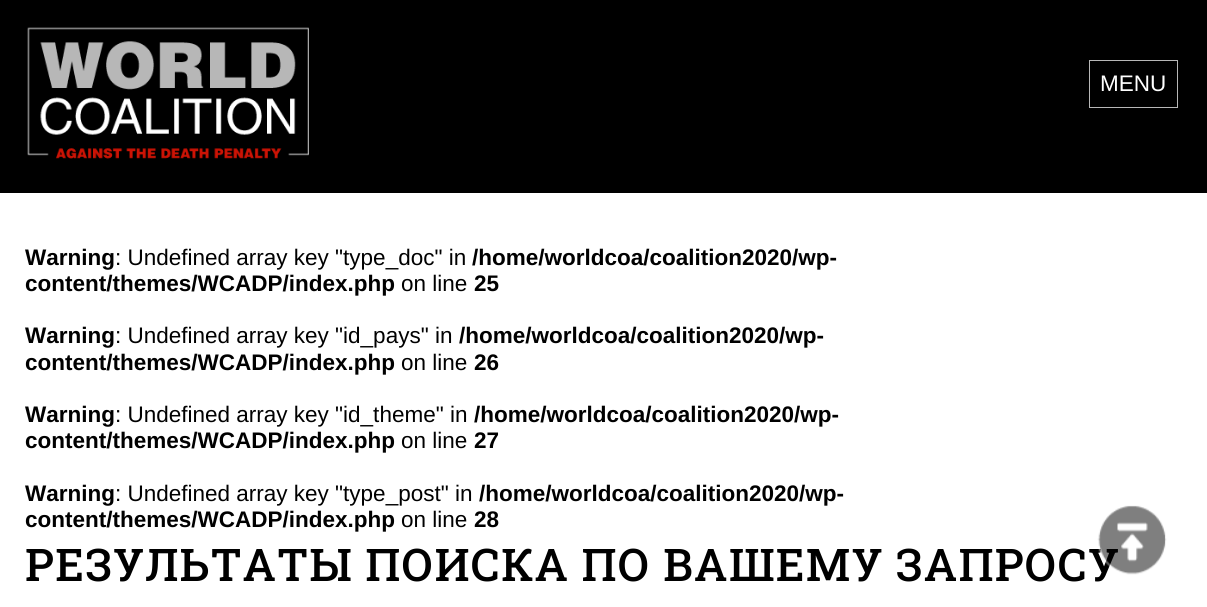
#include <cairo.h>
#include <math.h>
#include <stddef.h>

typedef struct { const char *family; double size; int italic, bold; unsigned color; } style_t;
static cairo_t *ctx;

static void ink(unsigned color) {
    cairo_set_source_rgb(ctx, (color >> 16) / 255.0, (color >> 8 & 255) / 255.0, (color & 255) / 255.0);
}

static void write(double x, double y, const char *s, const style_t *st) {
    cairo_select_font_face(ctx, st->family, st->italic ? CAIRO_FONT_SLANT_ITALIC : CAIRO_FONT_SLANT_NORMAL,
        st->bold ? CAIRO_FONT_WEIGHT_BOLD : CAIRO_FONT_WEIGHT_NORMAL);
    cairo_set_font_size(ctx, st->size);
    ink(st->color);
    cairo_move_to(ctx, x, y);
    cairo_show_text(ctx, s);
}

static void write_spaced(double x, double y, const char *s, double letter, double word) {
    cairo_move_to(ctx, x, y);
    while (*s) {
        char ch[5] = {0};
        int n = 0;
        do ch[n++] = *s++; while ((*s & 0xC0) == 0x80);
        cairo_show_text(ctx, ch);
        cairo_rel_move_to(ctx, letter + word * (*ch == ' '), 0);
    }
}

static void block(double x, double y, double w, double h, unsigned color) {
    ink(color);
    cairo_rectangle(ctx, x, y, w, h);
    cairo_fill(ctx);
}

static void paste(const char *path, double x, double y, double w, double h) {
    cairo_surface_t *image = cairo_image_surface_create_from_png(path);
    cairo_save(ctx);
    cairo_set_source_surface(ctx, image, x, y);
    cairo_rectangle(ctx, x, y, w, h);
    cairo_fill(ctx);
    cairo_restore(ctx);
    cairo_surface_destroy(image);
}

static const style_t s1 = {"Liberation Sans", 22.5, 0, 0, 0xffffff};
static const style_t s2 = {"Liberation Sans", 22.5, 0, 1, 0x000000};
static const style_t s3 = {"Liberation Sans", 22.5, 0, 0, 0x000000};

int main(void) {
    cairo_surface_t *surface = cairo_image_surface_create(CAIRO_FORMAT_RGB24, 1207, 607);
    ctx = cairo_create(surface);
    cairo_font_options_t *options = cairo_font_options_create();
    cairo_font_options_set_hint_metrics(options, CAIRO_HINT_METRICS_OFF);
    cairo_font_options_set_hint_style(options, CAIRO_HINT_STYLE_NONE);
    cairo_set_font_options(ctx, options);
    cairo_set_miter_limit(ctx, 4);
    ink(0xffffff);
    cairo_paint(ctx);
    block(0, 0, 1207, 193, 0x000000);
    paste("pic1.png", 27, 27, 282, 132);
    cairo_rectangle(ctx, 1089.5, 60.5, 88, 47);
    ink(0xb7b7b7);
    cairo_set_line_width(ctx, 1);
    cairo_stroke(ctx);
    write(1100, 91, "MENU", &s1);
    write(25, 265, "Warning", &s2);
    write(115, 265, ": Undefined array key \"type_doc\" in", &s3);
    write(472, 265, "/home/worldcoa/coalition2020/wp-", &s2);
    write(25, 291, "content/themes/WCADP/index.php", &s2);
    write(401, 291, "on line", &s3);
    write(474, 291, "25", &s2);
    write(25, 343, "Warning", &s2);
    write(115, 343, ": Undefined array key \"id_pays\" in", &s3);
    write(459, 343, "/home/worldcoa/coalition2020/wp-", &s2);
    write(25, 370, "content/themes/WCADP/index.php", &s2);
    write(401, 370, "on line", &s3);
    write(474, 370, "26", &s2);
    write(25, 422, "Warning", &s2);
    write(115, 422, ": Undefined array key \"id_theme\" in", &s3);
    write(474, 422, "/home/worldcoa/coalition2020/wp-", &s2);
    write(25, 448, "content/themes/WCADP/index.php", &s2);
    write(401, 448, "on line", &s3);
    write(474, 448, "27", &s2);
    write(25, 501, "Warning", &s2);
    write(115, 501, ": Undefined array key \"type_post\" in", &s3);
    write(479, 501, "/home/worldcoa/coalition2020/wp-", &s2);
    write(25, 527, "content/themes/WCADP/index.php", &s2);
    write(401, 527, "on line", &s3);
    write(474, 527, "28", &s2);
    cairo_select_font_face(ctx, "Roboto Slab Medium", CAIRO_FONT_SLANT_NORMAL, CAIRO_FONT_WEIGHT_NORMAL);
    cairo_set_font_size(ctx, 45);
    write_spaced(25, 581, "РЕЗУЛЬТАТЫ ПОИСКА ПО ВАШЕМУ ЗАПРОСУ", 1.25, 0);
    paste("pic2.png", 1097, 505, 70, 70);
    cairo_surface_write_to_png(surface, "screenshot.png");
    cairo_font_options_destroy(options);
    cairo_destroy(ctx);
    cairo_surface_destroy(surface);
    return 0;
}
